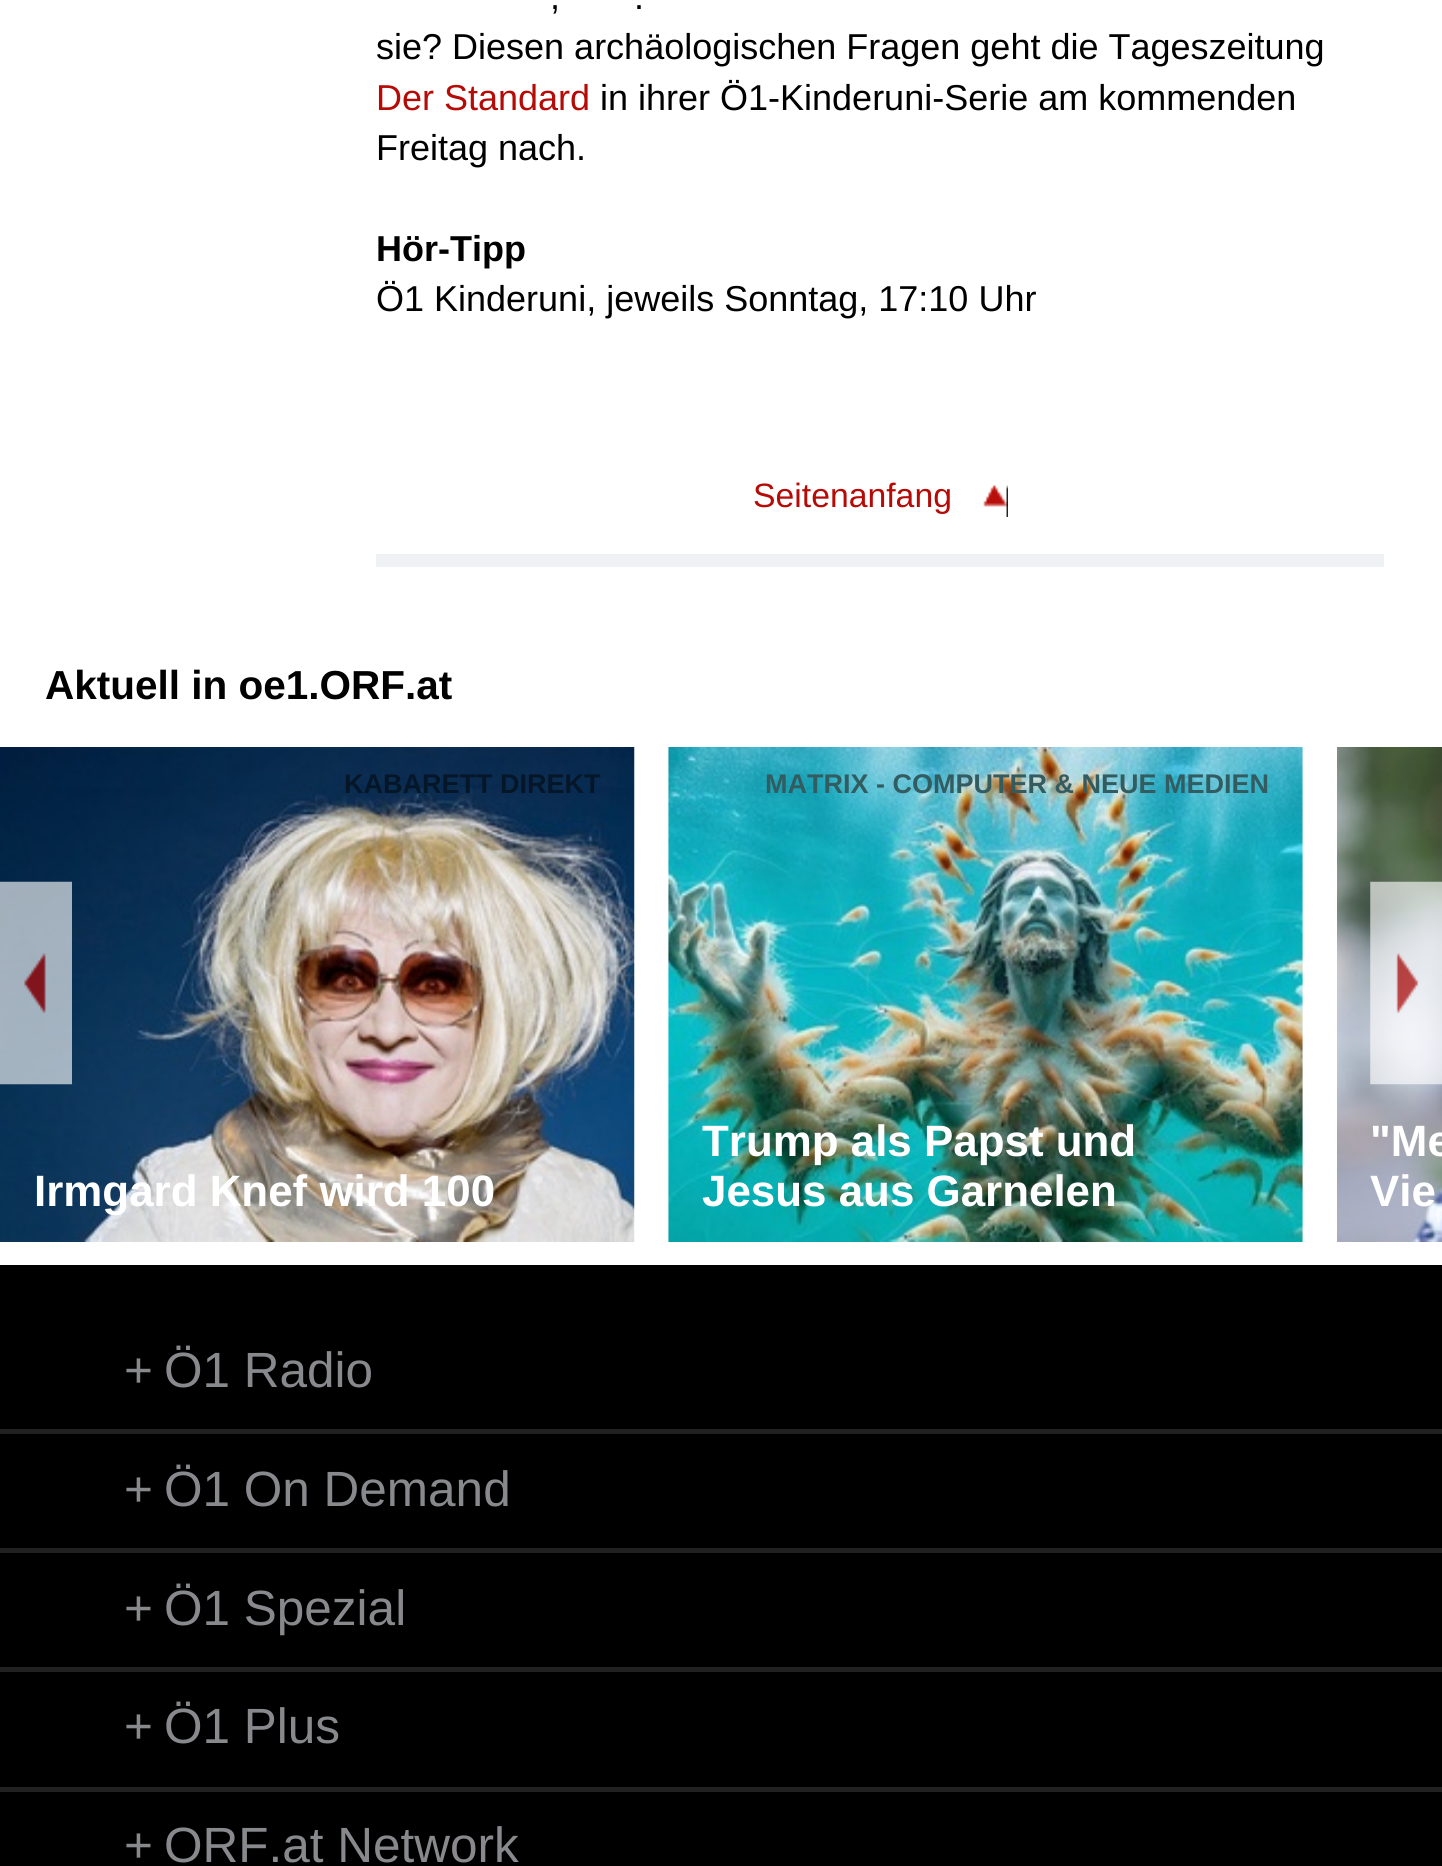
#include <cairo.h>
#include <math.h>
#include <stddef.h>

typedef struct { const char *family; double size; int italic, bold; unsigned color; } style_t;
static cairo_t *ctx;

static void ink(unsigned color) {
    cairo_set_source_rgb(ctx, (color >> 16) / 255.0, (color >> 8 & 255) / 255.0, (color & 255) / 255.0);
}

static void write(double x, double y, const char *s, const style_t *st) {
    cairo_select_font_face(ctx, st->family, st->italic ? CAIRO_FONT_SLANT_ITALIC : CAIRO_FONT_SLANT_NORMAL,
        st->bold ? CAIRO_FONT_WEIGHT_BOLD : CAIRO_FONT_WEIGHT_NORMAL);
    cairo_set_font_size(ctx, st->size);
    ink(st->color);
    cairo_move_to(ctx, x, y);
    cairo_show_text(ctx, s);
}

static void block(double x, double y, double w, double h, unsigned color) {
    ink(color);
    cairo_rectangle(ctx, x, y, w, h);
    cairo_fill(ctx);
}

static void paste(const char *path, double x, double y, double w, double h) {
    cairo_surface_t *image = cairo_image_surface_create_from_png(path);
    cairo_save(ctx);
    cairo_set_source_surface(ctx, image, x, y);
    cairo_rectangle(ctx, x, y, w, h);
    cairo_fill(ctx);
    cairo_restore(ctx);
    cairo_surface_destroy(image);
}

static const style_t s1 = {"Liberation Sans", 36, 0, 0, 0x000000};
static const style_t s2 = {"Liberation Sans", 36, 0, 0, 0xb60a06};
static const style_t s3 = {"Liberation Sans", 36, 0, 1, 0x000000};
static const style_t s4 = {"Liberation Sans", 33.75, 0, 0, 0xb60a06};
static const style_t s5 = {"Liberation Sans", 40.5, 0, 1, 0x000000};
static const style_t s6 = {"Liberation Sans", 27, 0, 1, 0x051628};
static const style_t s7 = {"Liberation Sans", 43.9, 0, 1, 0xffffff};
static const style_t s8 = {"Liberation Sans", 27, 0, 1, 0x335c61};
static const style_t s9 = {"Liberation Sans", 49.5, 0, 0, 0x88898c};

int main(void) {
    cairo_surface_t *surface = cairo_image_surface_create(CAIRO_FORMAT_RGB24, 1442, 1866);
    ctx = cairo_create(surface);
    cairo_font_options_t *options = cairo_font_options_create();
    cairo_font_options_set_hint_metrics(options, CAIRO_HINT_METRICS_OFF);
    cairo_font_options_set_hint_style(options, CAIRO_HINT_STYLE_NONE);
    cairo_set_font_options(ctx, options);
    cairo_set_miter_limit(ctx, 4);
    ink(0xffffff);
    cairo_paint(ctx);
    write(550, 9, ",", &s1);
    write(634, 9, ".", &s1);
    write(376, 59, "sie? Diesen archäologischen Fragen geht die Tageszeitung", &s1);
    write(376, 110, "Der Standard", &s2);
    write(600, 110, "in ihrer Ö1-Kinderuni-Serie am kommenden", &s1);
    write(376, 160, "Freitag nach.", &s1);
    write(376, 261, "Hör-Tipp", &s3);
    write(376, 311, "Ö1 Kinderuni, jeweils Sonntag, 17:10 Uhr", &s1);
    write(753, 507, "Seitenanfang", &s4);
    paste("pic1.png", 983, 485, 25, 32);
    block(376, 554, 1008, 13, 0xf0f1f4);
    write(45, 699, "Aktuell in oe1.ORF.at", &s5);
    paste("pic2.png", 0, 747, 635, 495);
    write(344, 793, "KABARETT DIREKT", &s6);
    write(34, 1206, "Irmgard Knef wird 100", &s7);
    paste("pic3.png", 668, 747, 635, 495);
    write(765, 793, "MATRIX - COMPUTER & NEUE MEDIEN", &s8);
    write(702, 1156, "Trump als Papst und", &s7);
    write(702, 1206, "Jesus aus Garnelen", &s7);
    paste("pic4.png", 1337, 747, 105, 495);
    write(1370, 1156, "\"Me", &s7);
    write(1370, 1206, "Vie", &s7);
    paste("pic5.png", 0, 881, 72, 204);
    paste("pic6.png", 1370, 881, 72, 204);
    block(0, 1265, 1442, 601, 0x000000);
    block(0, 1429, 1442, 5, 0x212121);
    write(124, 1387, "+", &s9);
    write(164, 1387, "Ö1 Radio", &s9);
    block(0, 1548, 1442, 5, 0x212121);
    write(124, 1506, "+", &s9);
    write(164, 1506, "Ö1 On Demand", &s9);
    block(0, 1667, 1442, 5, 0x212121);
    write(124, 1625, "+", &s9);
    write(164, 1625, "Ö1 Spezial", &s9);
    block(0, 1787, 1442, 5, 0x212121);
    write(124, 1743, "+", &s9);
    write(164, 1743, "Ö1 Plus", &s9);
    write(124, 1862, "+", &s9);
    write(164, 1862, "ORF.at Network", &s9);
    cairo_surface_write_to_png(surface, "screenshot.png");
    cairo_font_options_destroy(options);
    cairo_destroy(ctx);
    cairo_surface_destroy(surface);
    return 0;
}
